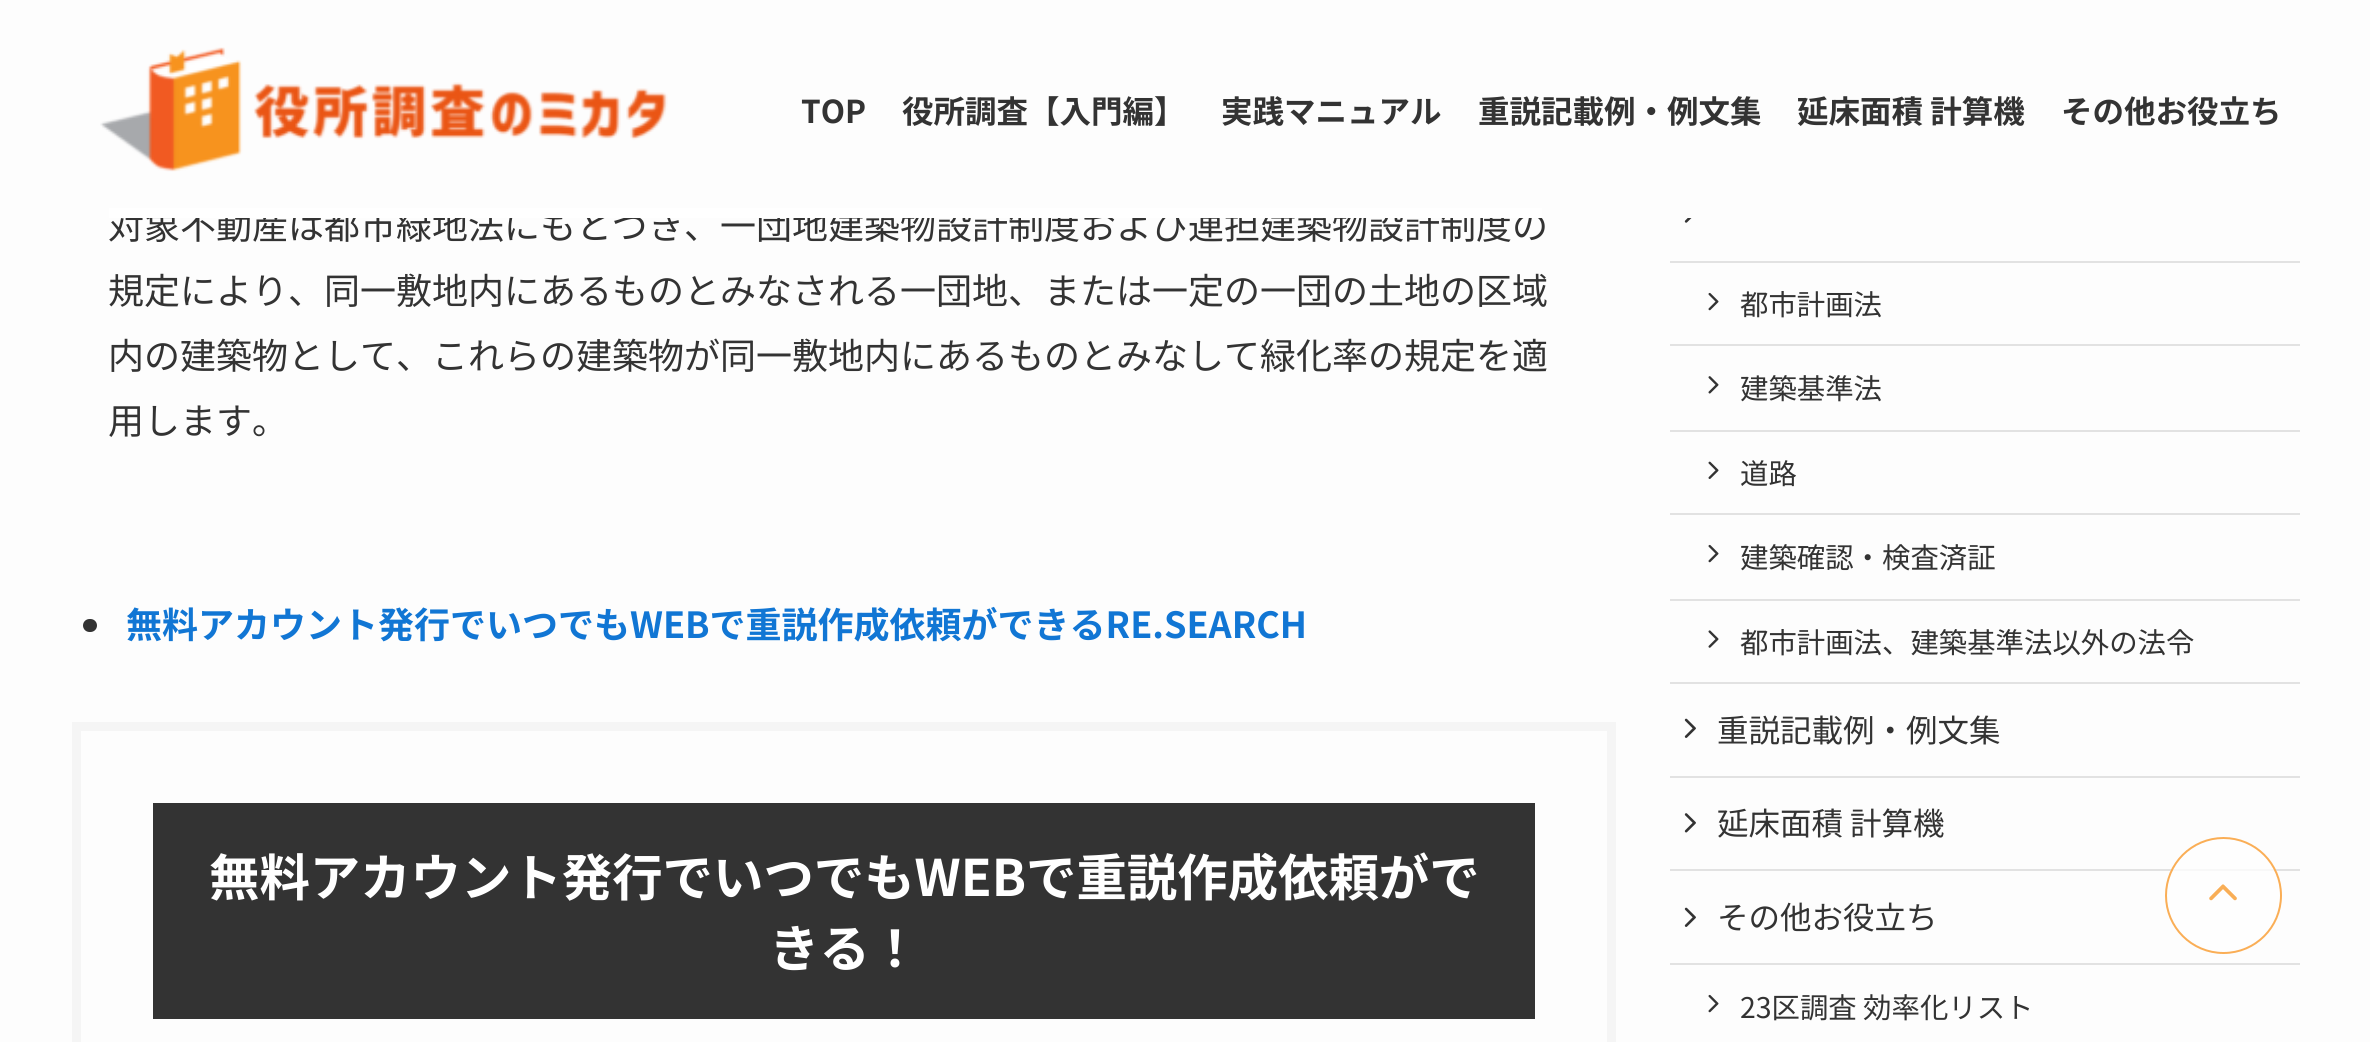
#include <cairo.h>
#include <math.h>
#include <stddef.h>

typedef struct { const char *family; double size; int italic, bold; unsigned color; } style_t;
static cairo_t *ctx;

static void ink(unsigned color) {
    cairo_set_source_rgb(ctx, (color >> 16) / 255.0, (color >> 8 & 255) / 255.0, (color & 255) / 255.0);
}

static void write(double x, double y, const char *s, const style_t *st) {
    cairo_select_font_face(ctx, st->family, st->italic ? CAIRO_FONT_SLANT_ITALIC : CAIRO_FONT_SLANT_NORMAL,
        st->bold ? CAIRO_FONT_WEIGHT_BOLD : CAIRO_FONT_WEIGHT_NORMAL);
    cairo_set_font_size(ctx, st->size);
    ink(st->color);
    cairo_move_to(ctx, x, y);
    cairo_show_text(ctx, s);
}

static void block(double x, double y, double w, double h, unsigned color) {
    ink(color);
    cairo_rectangle(ctx, x, y, w, h);
    cairo_fill(ctx);
}

static void round_path(double x, double y, double w, double h, double r) {
    cairo_new_sub_path(ctx);
    cairo_arc(ctx, x + w - r, y + h - r, r, 0, M_PI / 2);
    cairo_arc(ctx, x + r, y + h - r, r, M_PI / 2, M_PI);
    cairo_arc(ctx, x + r, y + r, r, M_PI, 1.5 * M_PI);
    cairo_arc(ctx, x + w - r, y + r, r, 1.5 * M_PI, 2 * M_PI);
    cairo_close_path(ctx);
}

static void paste(const char *path, double x, double y, double w, double h) {
    cairo_surface_t *image = cairo_image_surface_create_from_png(path);
    cairo_save(ctx);
    cairo_set_source_surface(ctx, image, x, y);
    cairo_rectangle(ctx, x, y, w, h);
    cairo_fill(ctx);
    cairo_restore(ctx);
    cairo_surface_destroy(image);
}

static const style_t s1 = {"Noto Sans JP", 31.5, 0, 1, 0x333333};
static const style_t s2 = {"Noto Sans JP", 36, 0, 0, 0x333333};
static const style_t s3 = {"Noto Sans JP", 36, 0, 1, 0x1176d4};
static const style_t s4 = {"Noto Sans JP", 50.4, 0, 1, 0xffffff};
static const style_t s5 = {"Noto Sans JP", 28.4, 0, 0, 0x333333};
static const style_t s6 = {"Noto Sans JP", 31.5, 0, 0, 0x333333};

int main(void) {
    cairo_surface_t *surface = cairo_image_surface_create(CAIRO_FORMAT_RGB24, 2370, 1042);
    ctx = cairo_create(surface);
    cairo_font_options_t *options = cairo_font_options_create();
    cairo_font_options_set_hint_metrics(options, CAIRO_HINT_METRICS_OFF);
    cairo_font_options_set_hint_style(options, CAIRO_HINT_STYLE_NONE);
    cairo_set_font_options(ctx, options);
    cairo_set_miter_limit(ctx, 4);
    ink(0xfdfdfd);
    cairo_paint(ctx);
    paste("pic1.png", 100, 47, 568, 125);
    write(801, 123, "TOP", &s1);
    write(902, 123, "役所調査【入門編】", &s1);
    write(1221, 123, "実践マニュアル", &s1);
    write(1478, 123, "重説記載例・例文集", &s1);
    write(1797, 123, "延床面積 計算機", &s1);
    write(2061, 123, "その他お役立ち", &s1);
    write(108, 239, "対象不動産は都市緑地法にもとづき、一団地建築物設計制度および連担建築物設計制度の", &s2);
    block(109, 208, 1433, 10, 0xffffff);
    write(108, 304, "規定により、同一敷地内にあるものとみなされる一団地、または一定の一団の土地の区域", &s2);
    write(108, 369, "内の建築物として、これらの建築物が同一敷地内にあるものとみなして緑化率の規定を適", &s2);
    write(108, 434, "用します。", &s2);
    round_path(83, 619, 14, 13, 6.5);
    cairo_fill(ctx);
    write(126, 638, "無料アカウント発行でいつでもWEBで重説作成依頼ができるRE.SEARCH", &s3);
    cairo_rectangle(ctx, 76.5, 726.5, 1535, 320);
    ink(0xf5f5f5);
    cairo_set_line_width(ctx, 9);
    cairo_stroke(ctx);
    block(153, 803, 1382, 216, 0x333333);
    write(209, 896, "無料アカウント発行でいつでもWEBで重説作成依頼がで", &s4);
    write(769, 967, "きる！", &s4);
    block(1670, 261, 630, 2, 0xe2e2e2);
    paste("pic2.png", 1684, 218, 8, 5);
    block(1670, 344, 630, 2, 0xe2e2e2);
    paste("pic3.png", 1708, 292, 11, 19);
    write(1740, 315, "都市計画法", &s5);
    block(1670, 430, 630, 2, 0xe2e2e2);
    paste("pic4.png", 1708, 376, 11, 18);
    write(1740, 399, "建築基準法", &s5);
    block(1670, 513, 630, 2, 0xe2e2e2);
    paste("pic5.png", 1708, 461, 11, 18);
    write(1740, 484, "道路", &s5);
    block(1670, 599, 630, 2, 0xe2e2e2);
    paste("pic3.png", 1708, 544, 11, 19);
    write(1740, 568, "建築確認・検査済証", &s5);
    block(1670, 682, 630, 2, 0xe2e2e2);
    paste("pic6.png", 1708, 630, 11, 18);
    write(1740, 653, "都市計画法、建築基準法以外の法令", &s5);
    block(1670, 776, 630, 2, 0xe2e2e2);
    paste("pic7.png", 1684, 718, 12, 20);
    write(1717, 742, "重説記載例・例文集", &s6);
    block(1670, 869, 630, 2, 0xe2e2e2);
    paste("pic8.png", 1684, 813, 12, 20);
    write(1717, 835, "延床面積 計算機", &s6);
    block(1670, 963, 630, 2, 0xe2e2e2);
    paste("pic7.png", 1684, 907, 12, 20);
    write(1717, 929, "その他お役立ち", &s6);
    paste("pic3.png", 1708, 994, 11, 19);
    write(1740, 1018, "23区調査 効率化リスト", &s5);
    cairo_set_source_rgba(ctx, 1, 1, 1, 0.75);
    cairo_new_path(ctx);
    cairo_arc(ctx, 2223.5, 895.5, 58.5, 0, 2 * M_PI);
    cairo_fill(ctx);
    cairo_arc(ctx, 2223.5, 895.5, 57.5, 0, 2 * M_PI);
    cairo_set_source_rgba(ctx, 0.969, 0.576, 0.118, 0.75);
    cairo_set_line_width(ctx, 2);
    cairo_stroke(ctx);
    paste("pic9.png", 2209, 884, 28, 17);
    cairo_surface_write_to_png(surface, "screenshot.png");
    cairo_font_options_destroy(options);
    cairo_destroy(ctx);
    cairo_surface_destroy(surface);
    return 0;
}
